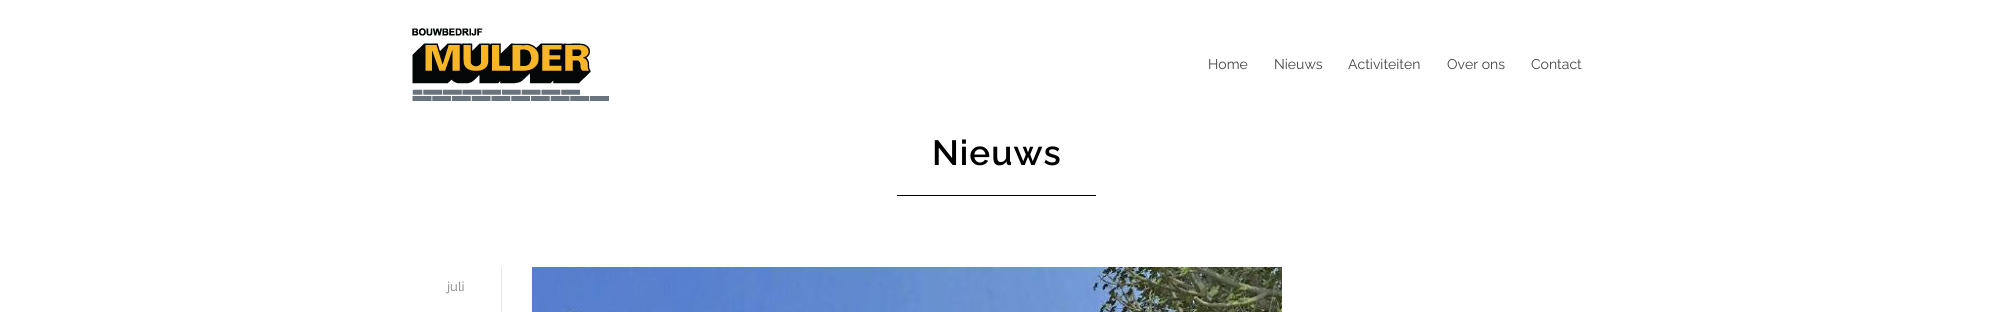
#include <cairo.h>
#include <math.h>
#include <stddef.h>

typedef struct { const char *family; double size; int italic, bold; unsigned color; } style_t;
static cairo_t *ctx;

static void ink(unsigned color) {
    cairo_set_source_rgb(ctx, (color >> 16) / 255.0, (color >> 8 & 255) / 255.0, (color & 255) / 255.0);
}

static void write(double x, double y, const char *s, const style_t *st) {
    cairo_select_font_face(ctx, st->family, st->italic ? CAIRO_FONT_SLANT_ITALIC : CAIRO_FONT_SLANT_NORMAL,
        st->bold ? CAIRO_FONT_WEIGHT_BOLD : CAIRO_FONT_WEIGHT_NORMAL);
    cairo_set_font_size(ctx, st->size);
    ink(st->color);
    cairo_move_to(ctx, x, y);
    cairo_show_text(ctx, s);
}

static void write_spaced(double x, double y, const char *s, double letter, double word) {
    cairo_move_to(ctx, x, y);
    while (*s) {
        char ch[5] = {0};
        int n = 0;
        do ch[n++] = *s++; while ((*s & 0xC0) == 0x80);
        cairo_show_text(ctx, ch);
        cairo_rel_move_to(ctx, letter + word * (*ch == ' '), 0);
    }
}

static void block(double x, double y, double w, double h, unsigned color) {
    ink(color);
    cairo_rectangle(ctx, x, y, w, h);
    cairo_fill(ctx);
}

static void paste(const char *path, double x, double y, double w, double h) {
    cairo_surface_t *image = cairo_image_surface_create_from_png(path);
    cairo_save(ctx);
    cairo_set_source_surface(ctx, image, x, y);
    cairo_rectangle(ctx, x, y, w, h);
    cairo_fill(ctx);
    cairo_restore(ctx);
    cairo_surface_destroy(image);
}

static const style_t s1 = {"Raleway", 14, 0, 0, 0x444444};
static const style_t s2 = {"Raleway Medium", 13, 0, 0, 0x999999};

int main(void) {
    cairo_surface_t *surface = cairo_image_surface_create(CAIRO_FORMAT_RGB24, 1993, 312);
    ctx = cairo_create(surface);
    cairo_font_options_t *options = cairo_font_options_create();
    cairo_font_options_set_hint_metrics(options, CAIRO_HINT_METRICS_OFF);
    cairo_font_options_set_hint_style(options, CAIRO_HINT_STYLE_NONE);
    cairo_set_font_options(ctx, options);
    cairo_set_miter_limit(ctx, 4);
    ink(0xffffff);
    cairo_paint(ctx);
    paste("pic1.png", 412, 28, 197, 73);
    write(1208, 69, "Home", &s1);
    write(1274, 69, "Nieuws", &s1);
    write(1348, 69, "Activiteiten", &s1);
    write(1447, 69, "Over ons", &s1);
    write(1531, 69, "Contact", &s1);
    cairo_select_font_face(ctx, "Raleway SemiBold", CAIRO_FONT_SLANT_NORMAL, CAIRO_FONT_WEIGHT_NORMAL);
    cairo_set_font_size(ctx, 35);
    ink(0x000000);
    write_spaced(932, 165, "Nieuws", 1, 0);
    block(897, 195, 199, 1, 0x000000);
    block(501, 267, 1, 45, 0xe2e6e7);
    write(447, 291, "juli", &s2);
    paste("pic2.png", 532, 267, 750, 45);
    cairo_surface_write_to_png(surface, "screenshot.png");
    cairo_font_options_destroy(options);
    cairo_destroy(ctx);
    cairo_surface_destroy(surface);
    return 0;
}
